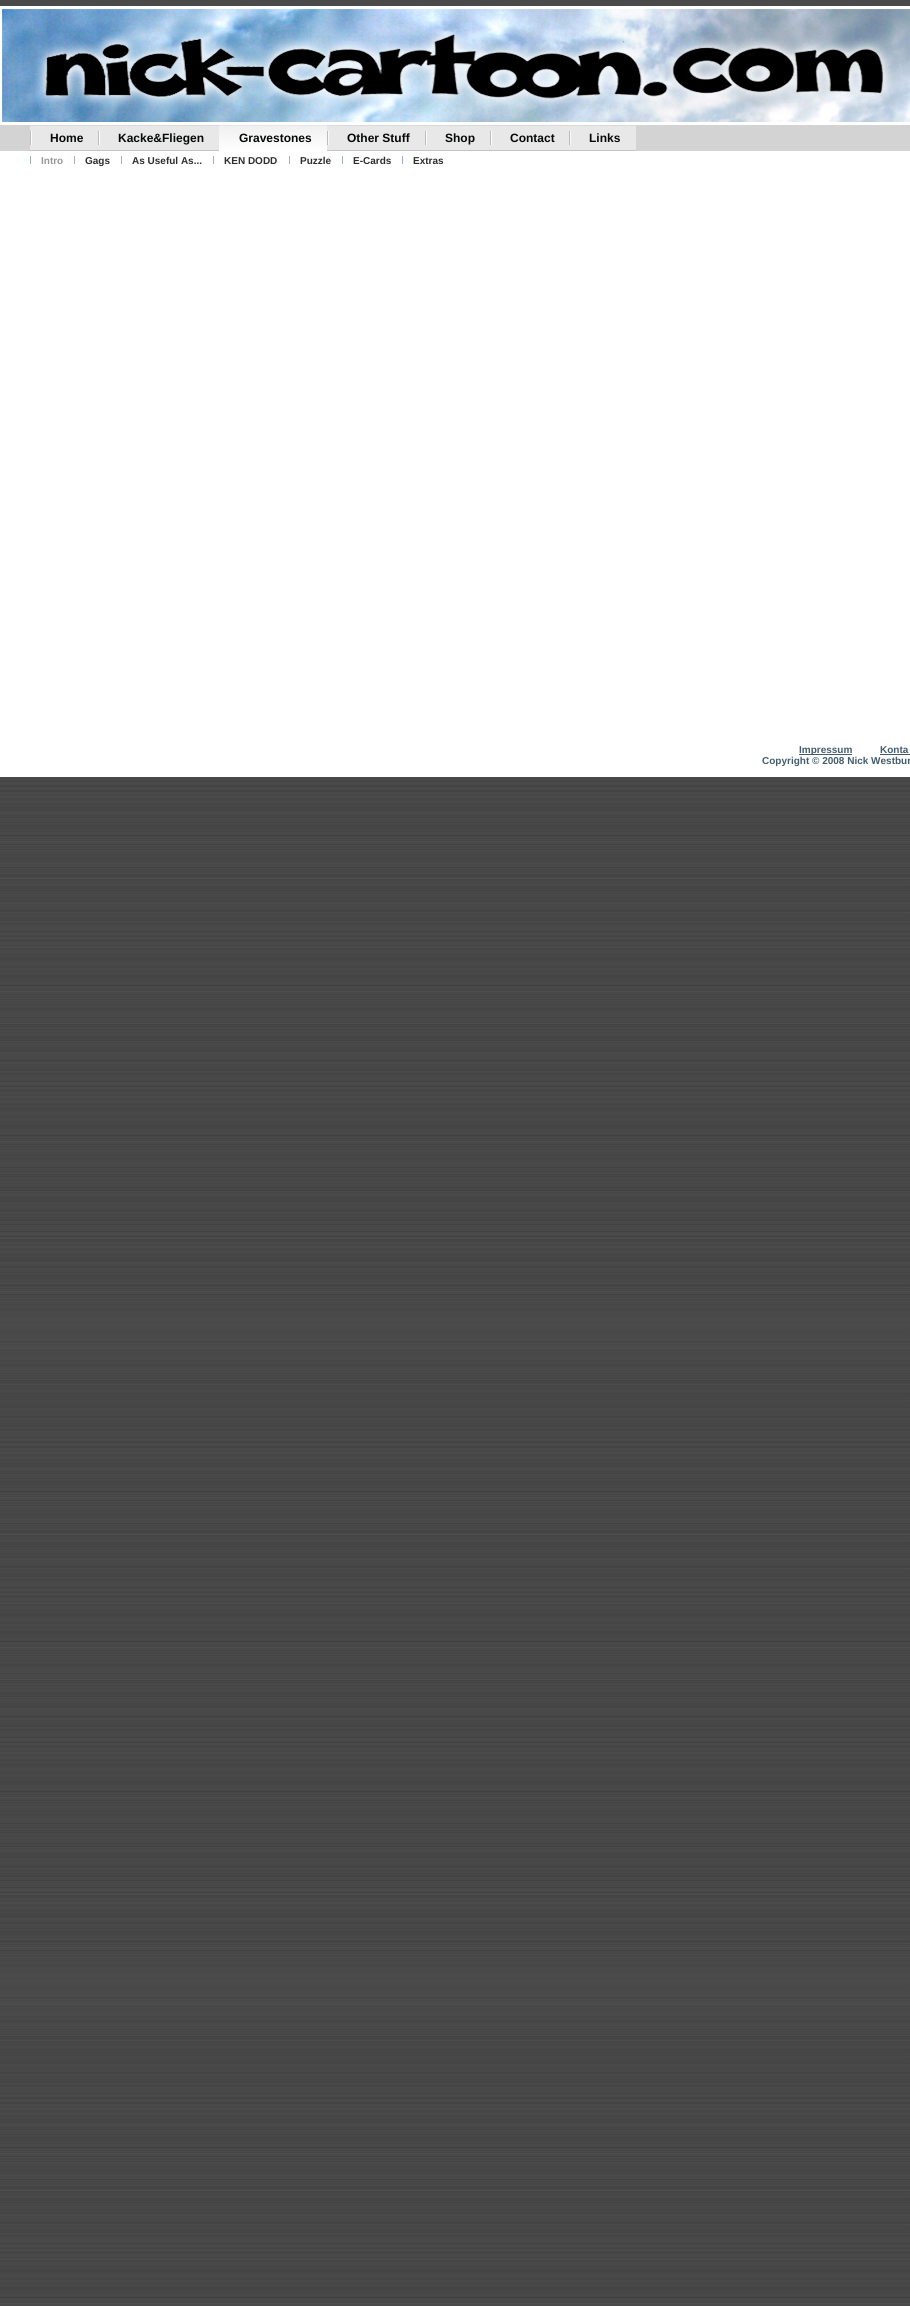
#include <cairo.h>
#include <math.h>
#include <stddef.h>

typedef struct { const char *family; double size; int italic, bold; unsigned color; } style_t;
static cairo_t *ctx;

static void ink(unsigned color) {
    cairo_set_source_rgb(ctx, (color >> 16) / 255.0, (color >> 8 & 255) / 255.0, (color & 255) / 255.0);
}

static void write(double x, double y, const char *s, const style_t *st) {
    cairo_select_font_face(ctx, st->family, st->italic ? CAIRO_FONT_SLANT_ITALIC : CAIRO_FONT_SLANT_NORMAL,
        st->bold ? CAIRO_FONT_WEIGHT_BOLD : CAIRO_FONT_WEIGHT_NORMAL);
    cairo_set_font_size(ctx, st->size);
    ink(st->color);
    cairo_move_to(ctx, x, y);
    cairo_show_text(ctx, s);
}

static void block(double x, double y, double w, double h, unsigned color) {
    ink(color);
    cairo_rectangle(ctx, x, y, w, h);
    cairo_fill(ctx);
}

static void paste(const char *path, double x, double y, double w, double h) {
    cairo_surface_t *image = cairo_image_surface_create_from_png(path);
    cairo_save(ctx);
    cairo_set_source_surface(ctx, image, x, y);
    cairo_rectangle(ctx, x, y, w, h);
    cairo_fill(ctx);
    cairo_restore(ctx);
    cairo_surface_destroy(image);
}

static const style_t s1 = {"Liberation Sans", 12, 0, 1, 0x070809};
static const style_t s2 = {"Liberation Sans", 10, 0, 1, 0x989897};
static const style_t s3 = {"Liberation Sans", 10, 0, 1, 0x2e2e2e};
static const style_t s4 = {"Liberation Sans", 10, 0, 1, 0x455c6c};

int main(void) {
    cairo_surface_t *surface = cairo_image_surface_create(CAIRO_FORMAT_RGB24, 910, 2306);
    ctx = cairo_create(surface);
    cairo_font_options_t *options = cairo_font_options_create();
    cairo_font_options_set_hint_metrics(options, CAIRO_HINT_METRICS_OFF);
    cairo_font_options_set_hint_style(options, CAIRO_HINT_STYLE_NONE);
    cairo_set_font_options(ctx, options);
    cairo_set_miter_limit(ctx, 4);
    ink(0xffffff);
    cairo_paint(ctx);
    paste("pic1.png", 0, 777, 910, 1529);
    block(0, 0, 910, 6, 0x4a4a4a);
    paste("pic2.png", 2, 9, 908, 113);
    block(0, 125, 910, 26, 0xd3d3d3);
    paste("pic3.png", 30, 125, 68, 26);
    write(50, 142, "Home", &s1);
    paste("pic4.png", 98, 125, 121, 26);
    write(118, 142, "Kacke&Fliegen", &s1);
    paste("pic5.png", 219, 125, 108, 26);
    write(239, 142, "Gravestones", &s1);
    paste("pic6.png", 327, 125, 98, 26);
    write(347, 142, "Other Stuff", &s1);
    paste("pic7.png", 425, 125, 65, 26);
    write(445, 142, "Shop", &s1);
    paste("pic8.png", 490, 125, 79, 26);
    write(510, 142, "Contact", &s1);
    paste("pic9.png", 569, 125, 67, 26);
    write(589, 142, "Links", &s1);
    block(30, 156, 1, 8, 0xa5aec3);
    write(41, 164, "Intro", &s2);
    block(74, 156, 1, 8, 0xa5aec3);
    write(85, 164, "Gags", &s3);
    block(121, 156, 1, 8, 0xa5aec3);
    write(132, 164, "As Useful As...", &s3);
    paste("pic10.png", 213, 156, 2, 8);
    write(224, 164, "KEN DODD", &s3);
    block(289, 156, 1, 8, 0xa5aec3);
    write(300, 164, "Puzzle", &s3);
    block(342, 156, 1, 8, 0xa5aec3);
    write(353, 164, "E-Cards", &s3);
    paste("pic10.png", 402, 156, 2, 8);
    write(413, 164, "Extras", &s3);
    block(799, 754, 53, 1, 0x455c6c);
    write(799, 753, "Impressum", &s4);
    write(880, 753, "Konta", &s4);
    block(880, 754, 30, 1, 0x455c6c);
    write(762, 764, "Copyright © 2008 Nick Westbur", &s4);
    cairo_surface_write_to_png(surface, "screenshot.png");
    cairo_font_options_destroy(options);
    cairo_destroy(ctx);
    cairo_surface_destroy(surface);
    return 0;
}
